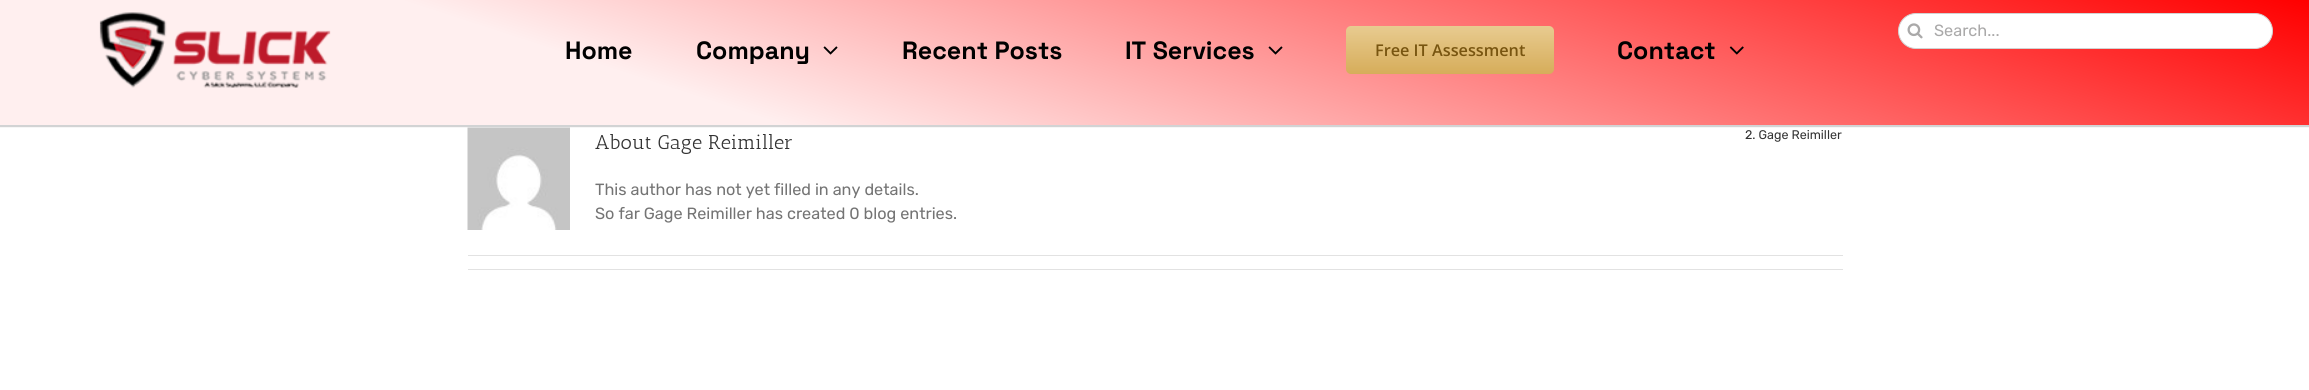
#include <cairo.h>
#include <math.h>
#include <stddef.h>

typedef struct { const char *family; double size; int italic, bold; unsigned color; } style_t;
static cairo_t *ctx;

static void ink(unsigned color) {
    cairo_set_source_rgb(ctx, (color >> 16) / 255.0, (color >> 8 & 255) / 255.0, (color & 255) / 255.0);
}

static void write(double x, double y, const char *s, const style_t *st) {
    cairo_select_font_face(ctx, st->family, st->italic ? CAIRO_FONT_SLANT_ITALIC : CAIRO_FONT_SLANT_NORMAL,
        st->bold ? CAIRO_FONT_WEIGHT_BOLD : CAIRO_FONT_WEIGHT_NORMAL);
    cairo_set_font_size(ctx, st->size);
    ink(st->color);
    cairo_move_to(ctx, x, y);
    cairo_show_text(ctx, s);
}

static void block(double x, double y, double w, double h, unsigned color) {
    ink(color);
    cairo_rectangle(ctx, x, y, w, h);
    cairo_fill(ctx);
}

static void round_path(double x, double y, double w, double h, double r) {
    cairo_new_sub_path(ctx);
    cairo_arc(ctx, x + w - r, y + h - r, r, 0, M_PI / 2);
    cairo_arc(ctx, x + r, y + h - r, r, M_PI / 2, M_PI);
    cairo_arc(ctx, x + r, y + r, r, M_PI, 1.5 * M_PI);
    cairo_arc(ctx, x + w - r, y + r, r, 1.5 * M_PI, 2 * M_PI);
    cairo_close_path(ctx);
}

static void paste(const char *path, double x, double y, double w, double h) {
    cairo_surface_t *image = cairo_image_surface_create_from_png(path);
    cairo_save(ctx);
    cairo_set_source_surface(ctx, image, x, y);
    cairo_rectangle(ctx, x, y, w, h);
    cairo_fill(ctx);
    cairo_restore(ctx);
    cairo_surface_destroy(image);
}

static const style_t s1 = {"Rubik", 16.25, 0, 0, 0xaaa9a9};
static const style_t s2 = {"Space Grotesk Light", 25, 0, 0, 0x000000};
static const style_t s3 = {"Open Sans SemiBold", 16.25, 0, 0, 0x785510};
static const style_t s4 = {"Antic Slab", 20, 0, 0, 0x333333};
static const style_t s5 = {"Rubik", 16.25, 0, 0, 0x747474};
static const style_t s6 = {"Rubik", 12.5, 0, 0, 0x333333};

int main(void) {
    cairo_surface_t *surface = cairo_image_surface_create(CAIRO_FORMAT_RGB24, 2309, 390);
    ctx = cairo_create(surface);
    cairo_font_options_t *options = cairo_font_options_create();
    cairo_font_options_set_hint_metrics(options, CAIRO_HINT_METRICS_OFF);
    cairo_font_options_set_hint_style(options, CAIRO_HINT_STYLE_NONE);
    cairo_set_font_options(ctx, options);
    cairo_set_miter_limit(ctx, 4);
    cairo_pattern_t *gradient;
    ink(0xffffff);
    cairo_paint(ctx);
    gradient = cairo_pattern_create_linear(1026, 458, 1284, -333);
    cairo_pattern_add_color_stop_rgba(gradient, 0.29, 1, 0.937, 0.937, 1);
    cairo_pattern_add_color_stop_rgba(gradient, 1, 1, 0, 0, 1);
    cairo_set_source(ctx, gradient);
    cairo_pattern_destroy(gradient);
    cairo_rectangle(ctx, 0, 0, 2309, 125);
    cairo_fill(ctx);
    paste("pic1.png", 99, 12, 232, 76);
    ink(0xffffff);
    round_path(1898.5, 13.5, 374, 35, 17.5);
    cairo_fill_preserve(ctx);
    ink(0xd2d2d2);
    cairo_set_line_width(ctx, 1);
    cairo_stroke(ctx);
    paste("pic2.png", 1907, 23, 16, 16);
    write(1934, 36, "Search...", &s1);
    write(565, 59, "Home", &s2);
    write(696, 59, "Company", &s2);
    paste("pic3.png", 823, 46, 15, 9);
    write(902, 59, "Recent Posts", &s2);
    write(1125, 59, "IT Services", &s2);
    paste("pic4.png", 1268, 46, 15, 9);
    gradient = cairo_pattern_create_linear(1450, 26, 1450, 74);
    cairo_pattern_add_color_stop_rgba(gradient, 0, 0.91, 0.796, 0.565, 1);
    cairo_pattern_add_color_stop_rgba(gradient, 1, 0.839, 0.678, 0.353, 1);
    cairo_set_source(ctx, gradient);
    cairo_pattern_destroy(gradient);
    round_path(1346, 26, 208, 48, 5);
    cairo_fill(ctx);
    write(1375, 56, "Free IT Assessment", &s3);
    write(1617, 59, "Contact", &s2);
    paste("pic5.png", 1729, 46, 15, 9);
    block(0, 127, 2309, 1, 0xf6f6f6);
    paste("pic6.png", 467, 127, 103, 103);
    write(595, 149, "About Gage Reimiller", &s4);
    write(595, 195, "This author has not yet filled in any details.", &s5);
    write(595, 219, "So far Gage Reimiller has created 0 blog entries.", &s5);
    block(468, 255, 1375, 1, 0xe2e2e2);
    block(468, 269, 1375, 1, 0xe2e2e2);
    block(0, 125, 2309, 2, 0xd2d3d4);
    write(1745, 139, "2. Gage Reimiller", &s6);
    cairo_surface_write_to_png(surface, "screenshot.png");
    cairo_font_options_destroy(options);
    cairo_destroy(ctx);
    cairo_surface_destroy(surface);
    return 0;
}
